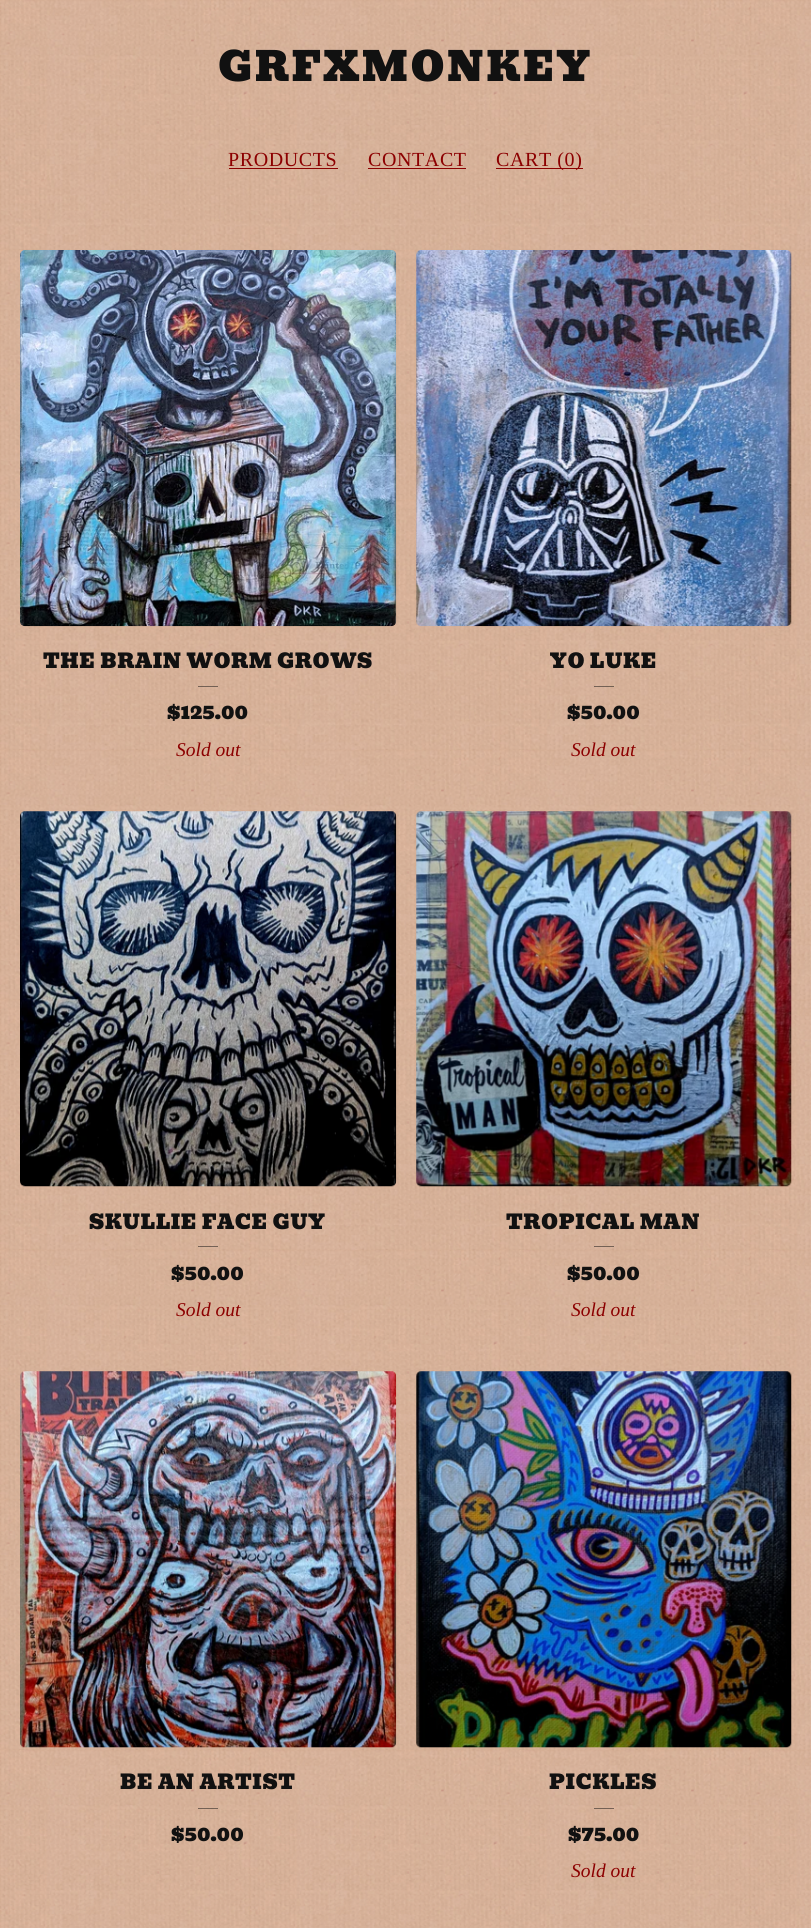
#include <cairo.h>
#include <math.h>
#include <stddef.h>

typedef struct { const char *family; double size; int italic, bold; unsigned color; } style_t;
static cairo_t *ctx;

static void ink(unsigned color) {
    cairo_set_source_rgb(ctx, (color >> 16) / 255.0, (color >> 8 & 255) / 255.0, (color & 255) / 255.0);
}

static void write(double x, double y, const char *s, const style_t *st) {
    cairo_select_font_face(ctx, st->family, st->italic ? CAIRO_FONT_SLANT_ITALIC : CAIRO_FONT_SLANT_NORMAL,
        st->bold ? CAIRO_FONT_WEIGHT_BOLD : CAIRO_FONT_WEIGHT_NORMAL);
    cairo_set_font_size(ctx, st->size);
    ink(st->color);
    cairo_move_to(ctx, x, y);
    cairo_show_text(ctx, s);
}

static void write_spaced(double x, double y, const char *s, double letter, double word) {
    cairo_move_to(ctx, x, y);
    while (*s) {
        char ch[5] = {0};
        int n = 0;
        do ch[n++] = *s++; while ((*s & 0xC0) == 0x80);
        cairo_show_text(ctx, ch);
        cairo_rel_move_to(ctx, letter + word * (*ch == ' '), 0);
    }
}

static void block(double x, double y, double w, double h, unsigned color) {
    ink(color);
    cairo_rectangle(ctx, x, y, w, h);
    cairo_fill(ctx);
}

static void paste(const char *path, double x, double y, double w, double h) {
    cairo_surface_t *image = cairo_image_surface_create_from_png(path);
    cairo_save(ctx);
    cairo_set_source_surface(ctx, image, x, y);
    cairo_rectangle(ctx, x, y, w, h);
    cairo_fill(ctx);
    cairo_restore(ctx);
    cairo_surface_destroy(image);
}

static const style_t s1 = {"Bevan", 20, 0, 0, 0x111111};
static const style_t s2 = {"Liberation Serif", 19.5, 1, 0, 0x8c0000};

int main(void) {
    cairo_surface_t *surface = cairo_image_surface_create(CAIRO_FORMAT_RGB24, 811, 1928);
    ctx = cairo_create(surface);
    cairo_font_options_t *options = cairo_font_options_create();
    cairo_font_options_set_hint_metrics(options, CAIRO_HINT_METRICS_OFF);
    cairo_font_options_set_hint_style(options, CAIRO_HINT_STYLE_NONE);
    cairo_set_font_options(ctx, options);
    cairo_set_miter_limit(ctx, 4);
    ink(0xffffff);
    cairo_paint(ctx);
    paste("pic1.png", 0, 0, 811, 1928);
    cairo_select_font_face(ctx, "Bevan", CAIRO_FONT_SLANT_NORMAL, CAIRO_FONT_WEIGHT_NORMAL);
    cairo_set_font_size(ctx, 40);
    ink(0x111111);
    write_spaced(218, 81, "GRFXMONKEY", 2.5, 0);
    cairo_select_font_face(ctx, "Liberation Serif", CAIRO_FONT_SLANT_NORMAL, CAIRO_FONT_WEIGHT_NORMAL);
    cairo_set_font_size(ctx, 20);
    ink(0x8c0000);
    write_spaced(228, 166, "PRODUCTS", 0.6, 0);
    block(229, 168, 109, 1, 0x8c0000);
    write_spaced(368, 166, "CONTACT", 0.6, 0);
    block(368, 168, 98, 1, 0x8c0000);
    block(496, 168, 87, 1, 0x8c0000);
    write_spaced(496, 166, "CART (0)", 0.6, 0);
    paste("pic2.png", 20, 250, 377, 377);
    cairo_select_font_face(ctx, "Bevan", CAIRO_FONT_SLANT_NORMAL, CAIRO_FONT_WEIGHT_NORMAL);
    ink(0x111111);
    write_spaced(43, 668, "THE BRAIN WORM GROWS", 0.6, 0);
    cairo_set_source_rgba(ctx, 0.067, 0.067, 0.067, 0.5);
    cairo_rectangle(ctx, 198, 686, 20, 1);
    cairo_fill(ctx);
    write(167, 719, "$125.00", &s1);
    write(176, 756, "Sold out", &s2);
    paste("pic3.png", 416, 250, 376, 377);
    cairo_select_font_face(ctx, "Bevan", CAIRO_FONT_SLANT_NORMAL, CAIRO_FONT_WEIGHT_NORMAL);
    cairo_set_font_size(ctx, 20);
    ink(0x111111);
    write_spaced(550, 668, "YO LUKE", 0.6, 0);
    cairo_set_source_rgba(ctx, 0.067, 0.067, 0.067, 0.5);
    cairo_rectangle(ctx, 594, 686, 20, 1);
    cairo_fill(ctx);
    write(567, 719, "$50.00", &s1);
    write(571, 756, "Sold out", &s2);
    paste("pic4.png", 20, 811, 377, 376);
    cairo_select_font_face(ctx, "Bevan", CAIRO_FONT_SLANT_NORMAL, CAIRO_FONT_WEIGHT_NORMAL);
    cairo_set_font_size(ctx, 20);
    ink(0x111111);
    write_spaced(89, 1229, "SKULLIE FACE GUY", 0.6, 0);
    cairo_set_source_rgba(ctx, 0.067, 0.067, 0.067, 0.5);
    cairo_rectangle(ctx, 198, 1246, 20, 1);
    cairo_fill(ctx);
    write(171, 1280, "$50.00", &s1);
    write(176, 1316, "Sold out", &s2);
    paste("pic5.png", 416, 811, 376, 376);
    cairo_select_font_face(ctx, "Bevan", CAIRO_FONT_SLANT_NORMAL, CAIRO_FONT_WEIGHT_NORMAL);
    cairo_set_font_size(ctx, 20);
    ink(0x111111);
    write_spaced(506, 1229, "TROPICAL MAN", 0.6, 0);
    cairo_set_source_rgba(ctx, 0.067, 0.067, 0.067, 0.5);
    cairo_rectangle(ctx, 594, 1246, 20, 1);
    cairo_fill(ctx);
    write(567, 1280, "$50.00", &s1);
    write(571, 1316, "Sold out", &s2);
    paste("pic6.png", 20, 1371, 377, 377);
    cairo_select_font_face(ctx, "Bevan", CAIRO_FONT_SLANT_NORMAL, CAIRO_FONT_WEIGHT_NORMAL);
    cairo_set_font_size(ctx, 20);
    ink(0x111111);
    write_spaced(120, 1789, "BE AN ARTIST", 0.6, 0);
    cairo_set_source_rgba(ctx, 0.067, 0.067, 0.067, 0.5);
    cairo_rectangle(ctx, 198, 1808, 20, 1);
    cairo_fill(ctx);
    write(171, 1841, "$50.00", &s1);
    paste("pic7.png", 416, 1371, 376, 377);
    write_spaced(549, 1789, "PICKLES", 0.6, 0);
    cairo_set_source_rgba(ctx, 0.067, 0.067, 0.067, 0.5);
    cairo_rectangle(ctx, 594, 1808, 20, 1);
    cairo_fill(ctx);
    write(568, 1841, "$75.00", &s1);
    write(571, 1877, "Sold out", &s2);
    cairo_surface_write_to_png(surface, "screenshot.png");
    cairo_font_options_destroy(options);
    cairo_destroy(ctx);
    cairo_surface_destroy(surface);
    return 0;
}
